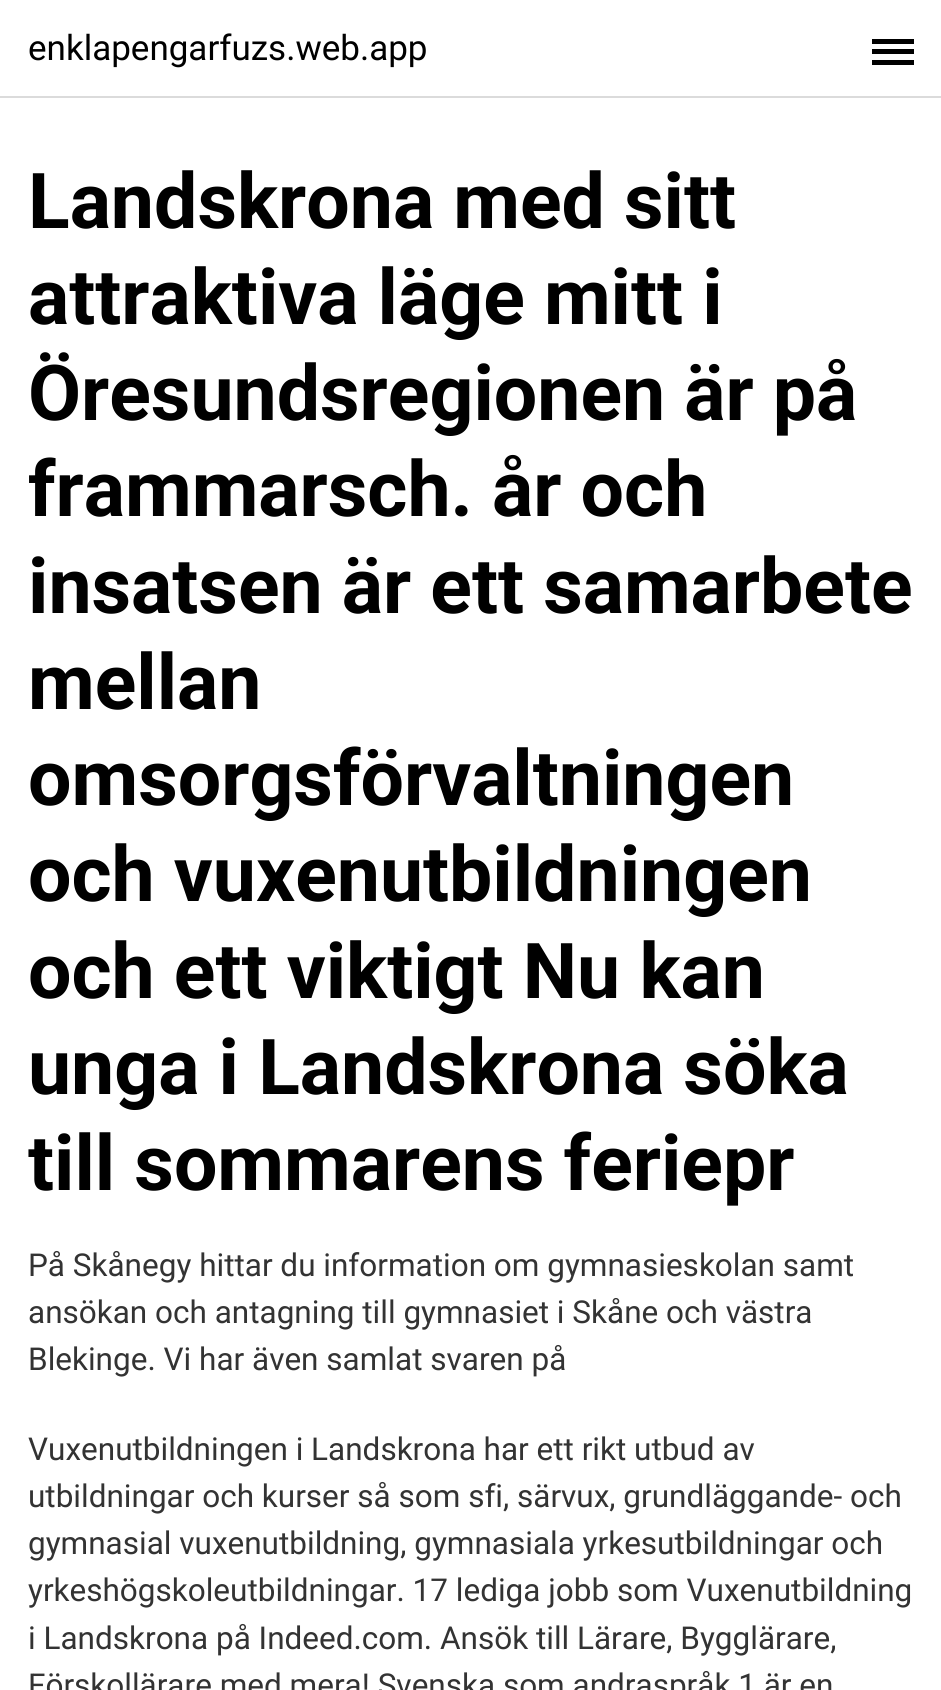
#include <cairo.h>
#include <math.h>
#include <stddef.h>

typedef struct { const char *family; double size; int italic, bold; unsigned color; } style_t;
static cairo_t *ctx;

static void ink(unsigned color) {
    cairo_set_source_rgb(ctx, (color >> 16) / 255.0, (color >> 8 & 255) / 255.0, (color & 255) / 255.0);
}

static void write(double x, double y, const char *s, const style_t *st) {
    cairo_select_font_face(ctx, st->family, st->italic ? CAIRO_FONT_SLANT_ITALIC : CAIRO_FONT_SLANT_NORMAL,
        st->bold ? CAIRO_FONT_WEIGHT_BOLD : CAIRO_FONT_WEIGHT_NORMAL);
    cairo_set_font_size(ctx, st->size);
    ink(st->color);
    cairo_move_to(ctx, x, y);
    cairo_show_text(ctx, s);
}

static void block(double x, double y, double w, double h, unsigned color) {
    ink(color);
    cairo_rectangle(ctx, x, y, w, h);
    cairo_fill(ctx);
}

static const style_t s1 = {"Roboto", 35, 0, 0, 0x000000};
static const style_t s2 = {"Roboto", 77, 0, 1, 0x000000};
static const style_t s3 = {"Roboto", 31.5, 0, 0, 0x333333};

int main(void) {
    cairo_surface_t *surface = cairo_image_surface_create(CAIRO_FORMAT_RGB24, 941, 1690);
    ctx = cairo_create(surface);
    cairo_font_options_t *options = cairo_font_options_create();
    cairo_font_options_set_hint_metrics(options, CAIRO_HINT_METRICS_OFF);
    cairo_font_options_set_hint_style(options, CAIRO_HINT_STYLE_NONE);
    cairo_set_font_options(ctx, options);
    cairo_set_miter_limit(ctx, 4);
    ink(0xffffff);
    cairo_paint(ctx);
    block(0, 96, 941, 2, 0xdbdbdb);
    write(28, 60, "enklapengarfuzs.web.app", &s1);
    block(872, 49, 42, 5, 0x000000);
    block(872, 39, 42, 5, 0x000000);
    block(872, 60, 42, 5, 0x000000);
    write(28, 228, "Landskrona med sitt", &s2);
    write(28, 324, "attraktiva läge mitt i", &s2);
    write(28, 420, "Öresundsregionen är på", &s2);
    write(28, 516, "frammarsch. år och", &s2);
    write(28, 613, "insatsen är ett samarbete", &s2);
    write(28, 709, "mellan", &s2);
    write(28, 805, "omsorgsförvaltningen", &s2);
    write(28, 901, "och vuxenutbildningen", &s2);
    write(28, 998, "och ett viktigt Nu kan", &s2);
    write(28, 1094, "unga i Landskrona söka", &s2);
    write(28, 1190, "till sommarens feriepr", &s2);
    write(28, 1276, "På Skånegy hittar du information om gymnasieskolan samt", &s3);
    write(28, 1323, "ansökan och antagning till gymnasiet i Skåne och västra", &s3);
    write(28, 1370, "Blekinge. Vi har även samlat svaren på", &s3);
    write(28, 1460, "Vuxenutbildningen i Landskrona har ett rikt utbud av", &s3);
    write(28, 1507, "utbildningar och kurser så som sfi, särvux, grundläggande- och", &s3);
    write(28, 1554, "gymnasial vuxenutbildning, gymnasiala yrkesutbildningar och", &s3);
    write(28, 1601, "yrkeshögskoleutbildningar. 17 lediga jobb som Vuxenutbildning", &s3);
    write(28, 1649, "i Landskrona på Indeed.com. Ansök till Lärare, Bygglärare,", &s3);
    write(28, 1696, "Förskollärare med mera! Svenska som andraspråk 1 är en", &s3);
    cairo_surface_write_to_png(surface, "screenshot.png");
    cairo_font_options_destroy(options);
    cairo_destroy(ctx);
    cairo_surface_destroy(surface);
    return 0;
}
